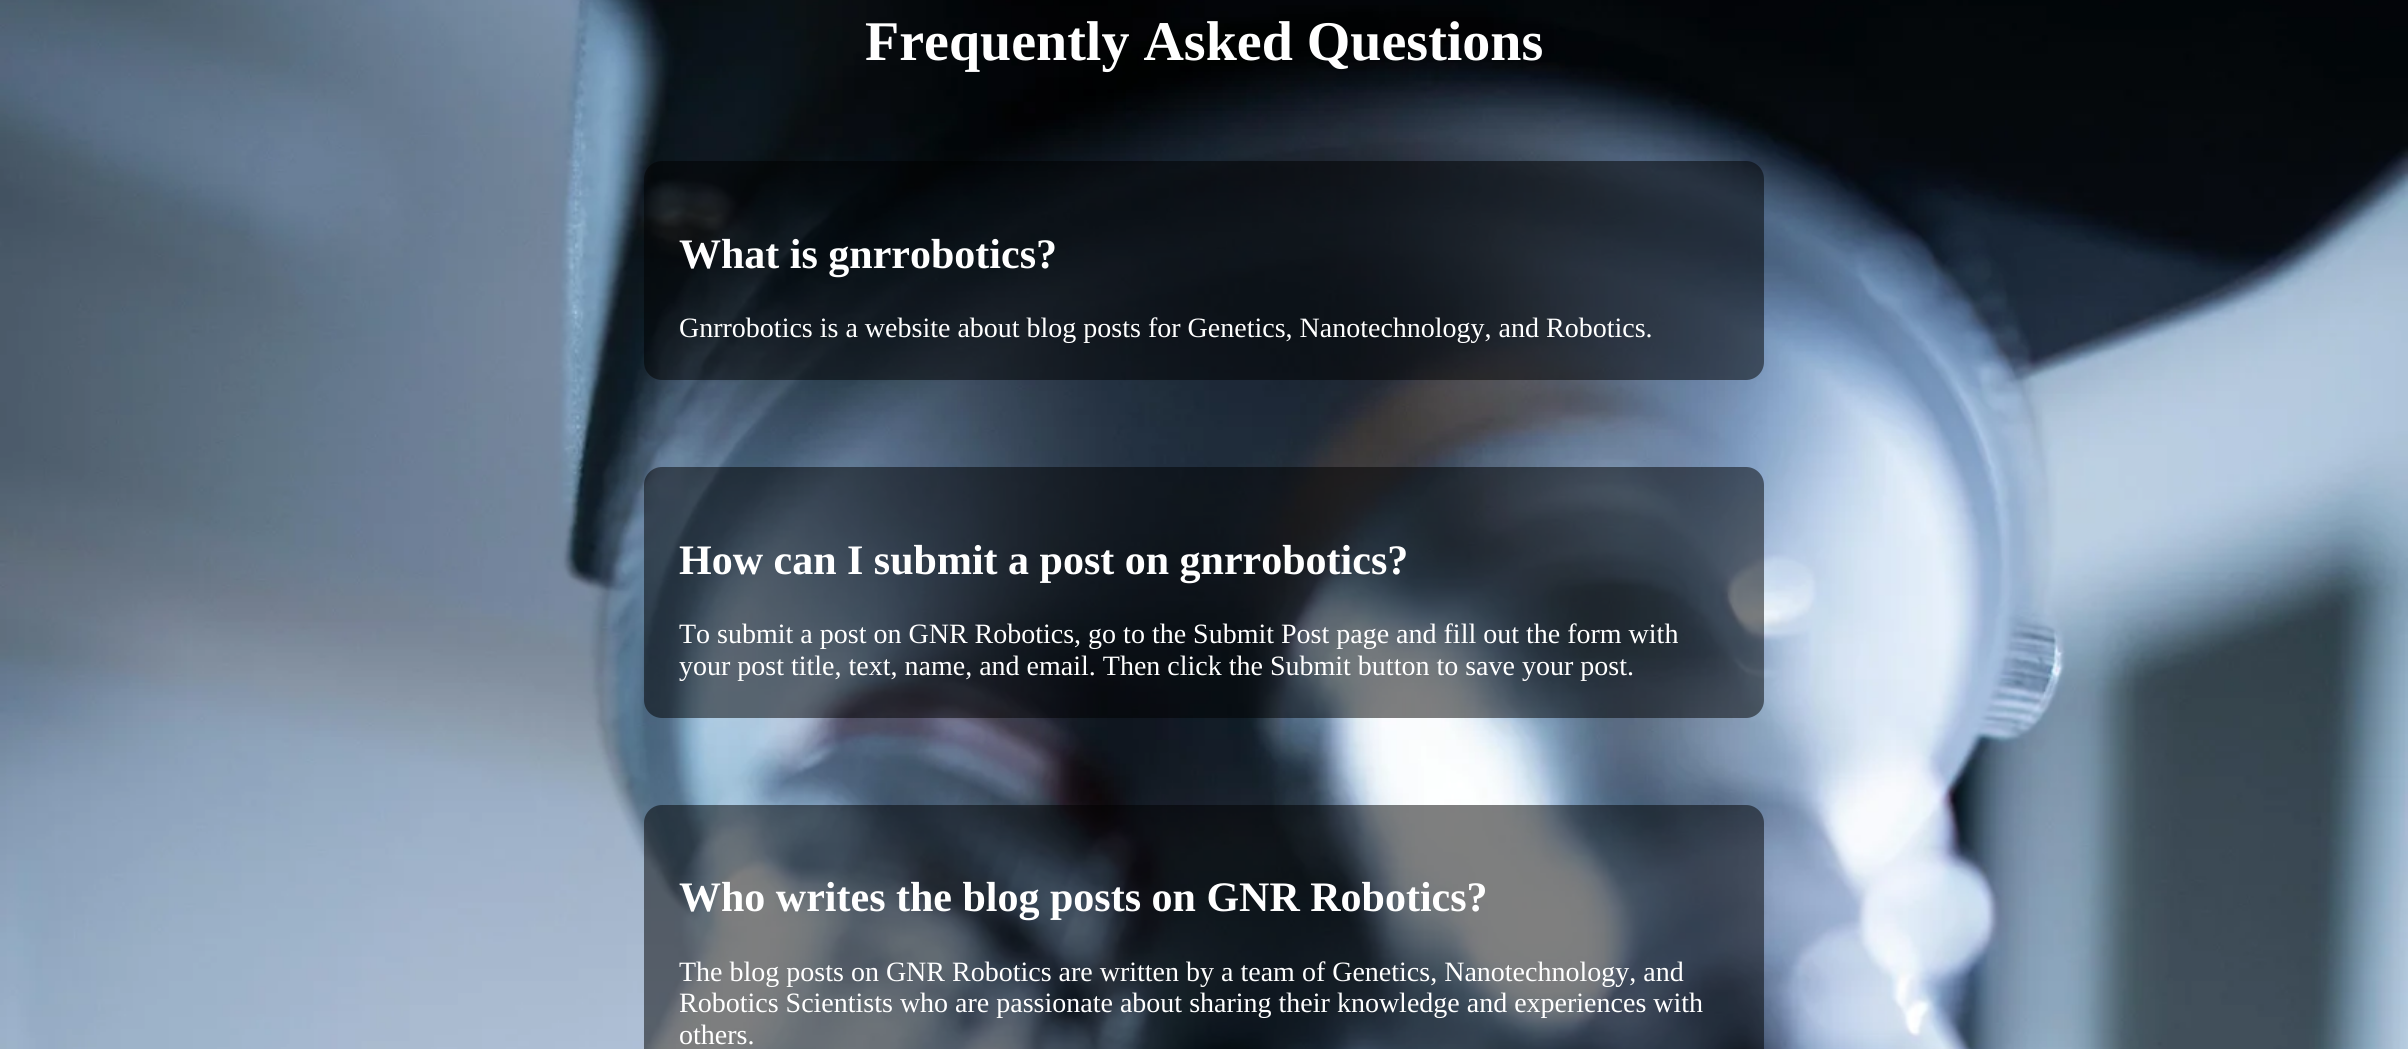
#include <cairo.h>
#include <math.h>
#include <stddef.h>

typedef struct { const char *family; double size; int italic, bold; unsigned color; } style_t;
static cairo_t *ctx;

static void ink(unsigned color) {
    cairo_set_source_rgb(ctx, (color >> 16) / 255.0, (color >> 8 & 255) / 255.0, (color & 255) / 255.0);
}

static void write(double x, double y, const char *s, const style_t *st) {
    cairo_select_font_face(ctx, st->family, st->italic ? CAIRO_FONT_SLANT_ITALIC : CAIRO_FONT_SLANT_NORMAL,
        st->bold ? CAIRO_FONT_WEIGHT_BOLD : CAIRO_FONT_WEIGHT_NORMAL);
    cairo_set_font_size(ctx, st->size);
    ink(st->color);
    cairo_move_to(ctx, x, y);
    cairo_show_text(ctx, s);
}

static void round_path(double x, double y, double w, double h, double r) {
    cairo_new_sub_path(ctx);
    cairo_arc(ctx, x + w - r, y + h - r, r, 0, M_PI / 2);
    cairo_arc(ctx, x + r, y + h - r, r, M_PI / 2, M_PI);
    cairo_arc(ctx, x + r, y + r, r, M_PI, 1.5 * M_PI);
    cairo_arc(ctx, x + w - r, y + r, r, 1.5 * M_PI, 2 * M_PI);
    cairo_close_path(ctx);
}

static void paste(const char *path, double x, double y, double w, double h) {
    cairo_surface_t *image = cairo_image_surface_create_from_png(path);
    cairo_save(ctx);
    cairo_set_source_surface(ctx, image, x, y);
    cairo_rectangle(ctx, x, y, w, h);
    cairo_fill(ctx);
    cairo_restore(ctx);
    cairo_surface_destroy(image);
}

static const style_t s1 = {"Liberation Serif", 56, 0, 1, 0xffffff};
static const style_t s2 = {"Liberation Serif", 42, 0, 1, 0xffffff};
static const style_t s3 = {"Liberation Serif", 28, 0, 0, 0xffffff};

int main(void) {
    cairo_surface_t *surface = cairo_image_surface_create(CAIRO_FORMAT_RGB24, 2408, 1049);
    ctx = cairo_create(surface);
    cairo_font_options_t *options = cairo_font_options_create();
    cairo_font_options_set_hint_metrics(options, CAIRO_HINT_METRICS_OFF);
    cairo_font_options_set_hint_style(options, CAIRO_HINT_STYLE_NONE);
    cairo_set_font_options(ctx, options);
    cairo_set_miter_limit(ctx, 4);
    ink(0xffffff);
    cairo_paint(ctx);
    paste("pic1.png", 0, 0, 2408, 1049);
    write(865, 60, "Frequently Asked Questions", &s1);
    cairo_set_source_rgba(ctx, 0, 0, 0, 0.5);
    round_path(644, 161, 1120, 219, 18);
    cairo_fill(ctx);
    write(679, 268, "What is gnrrobotics?", &s2);
    write(679, 337, "Gnrrobotics is a website about blog posts for Genetics, Nanotechnology, and Robotics.", &s3);
    cairo_set_source_rgba(ctx, 0, 0, 0, 0.5);
    round_path(644, 467, 1120, 251, 18);
    cairo_fill(ctx);
    write(679, 574, "How can I submit a post on gnrrobotics?", &s2);
    write(679, 643, "To submit a post on GNR Robotics, go to the Submit Post page and fill out the form with", &s3);
    write(679, 675, "your post title, text, name, and email. Then click the Submit button to save your post.", &s3);
    cairo_set_source_rgba(ctx, 0, 0, 0, 0.5);
    round_path(644, 805, 1120, 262, 18);
    cairo_fill(ctx);
    write(679, 911, "Who writes the blog posts on GNR Robotics?", &s2);
    write(679, 981, "The blog posts on GNR Robotics are written by a team of Genetics, Nanotechnology, and", &s3);
    write(679, 1012, "Robotics Scientists who are passionate about sharing their knowledge and experiences with", &s3);
    write(679, 1044, "others.", &s3);
    cairo_surface_write_to_png(surface, "screenshot.png");
    cairo_font_options_destroy(options);
    cairo_destroy(ctx);
    cairo_surface_destroy(surface);
    return 0;
}
